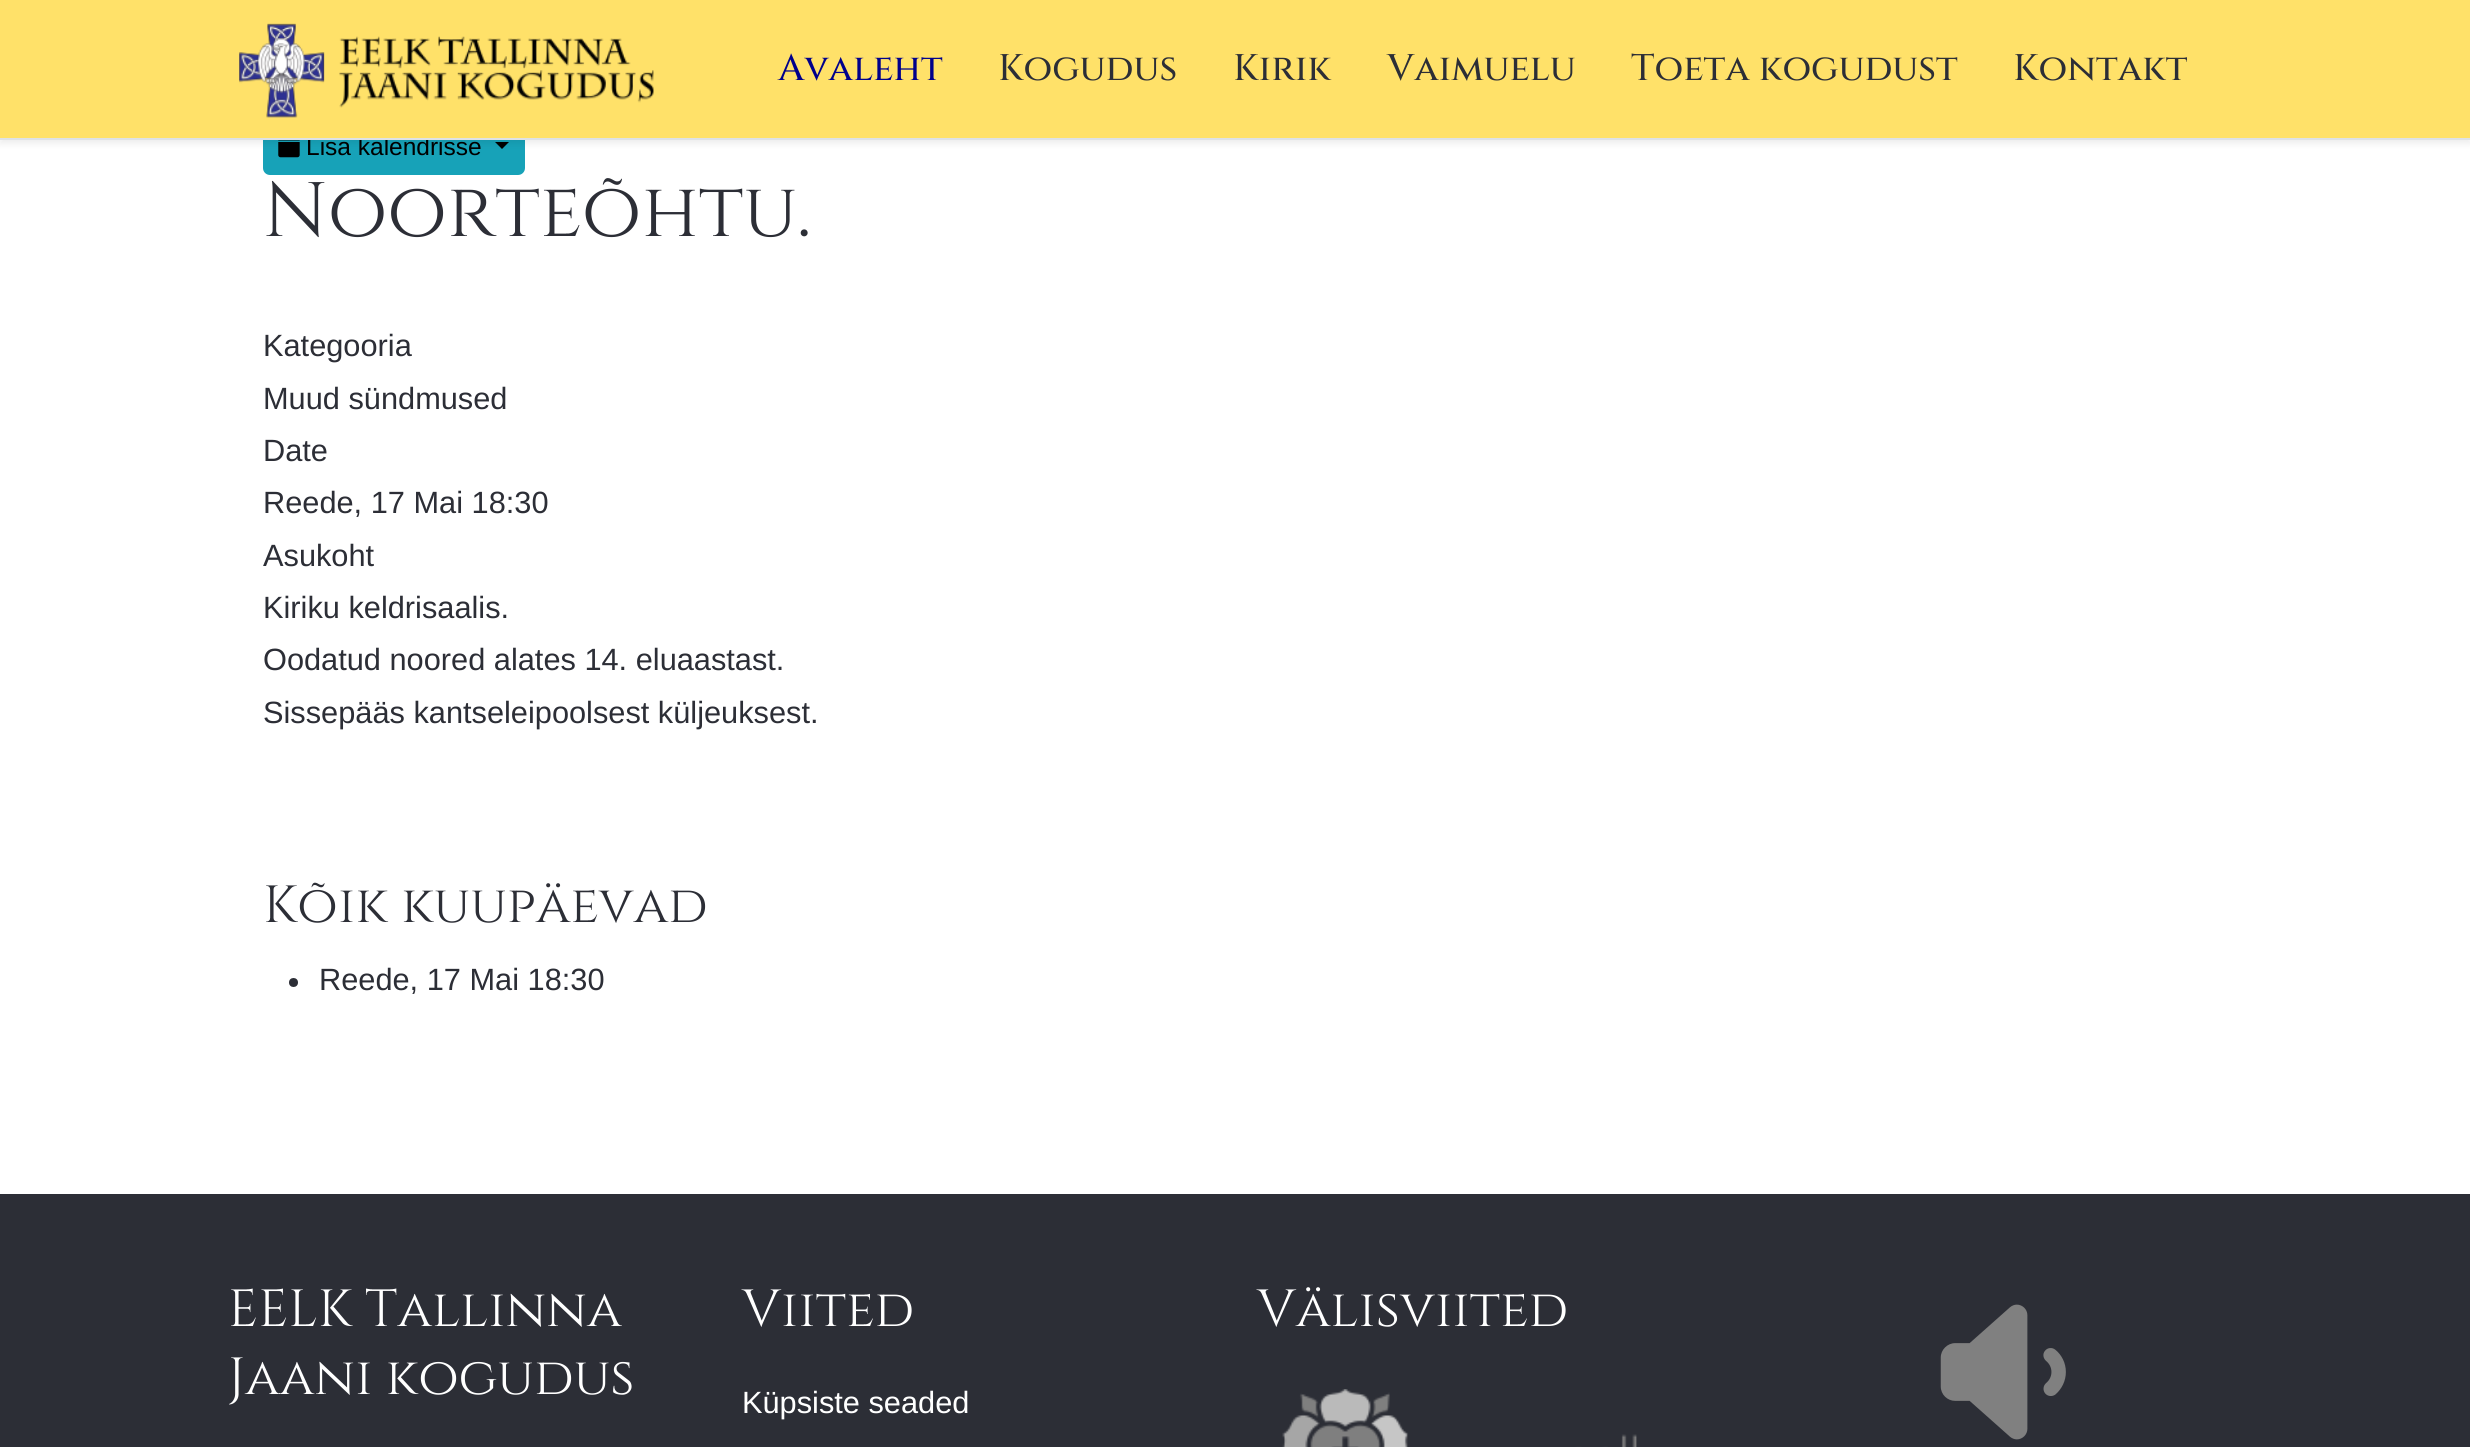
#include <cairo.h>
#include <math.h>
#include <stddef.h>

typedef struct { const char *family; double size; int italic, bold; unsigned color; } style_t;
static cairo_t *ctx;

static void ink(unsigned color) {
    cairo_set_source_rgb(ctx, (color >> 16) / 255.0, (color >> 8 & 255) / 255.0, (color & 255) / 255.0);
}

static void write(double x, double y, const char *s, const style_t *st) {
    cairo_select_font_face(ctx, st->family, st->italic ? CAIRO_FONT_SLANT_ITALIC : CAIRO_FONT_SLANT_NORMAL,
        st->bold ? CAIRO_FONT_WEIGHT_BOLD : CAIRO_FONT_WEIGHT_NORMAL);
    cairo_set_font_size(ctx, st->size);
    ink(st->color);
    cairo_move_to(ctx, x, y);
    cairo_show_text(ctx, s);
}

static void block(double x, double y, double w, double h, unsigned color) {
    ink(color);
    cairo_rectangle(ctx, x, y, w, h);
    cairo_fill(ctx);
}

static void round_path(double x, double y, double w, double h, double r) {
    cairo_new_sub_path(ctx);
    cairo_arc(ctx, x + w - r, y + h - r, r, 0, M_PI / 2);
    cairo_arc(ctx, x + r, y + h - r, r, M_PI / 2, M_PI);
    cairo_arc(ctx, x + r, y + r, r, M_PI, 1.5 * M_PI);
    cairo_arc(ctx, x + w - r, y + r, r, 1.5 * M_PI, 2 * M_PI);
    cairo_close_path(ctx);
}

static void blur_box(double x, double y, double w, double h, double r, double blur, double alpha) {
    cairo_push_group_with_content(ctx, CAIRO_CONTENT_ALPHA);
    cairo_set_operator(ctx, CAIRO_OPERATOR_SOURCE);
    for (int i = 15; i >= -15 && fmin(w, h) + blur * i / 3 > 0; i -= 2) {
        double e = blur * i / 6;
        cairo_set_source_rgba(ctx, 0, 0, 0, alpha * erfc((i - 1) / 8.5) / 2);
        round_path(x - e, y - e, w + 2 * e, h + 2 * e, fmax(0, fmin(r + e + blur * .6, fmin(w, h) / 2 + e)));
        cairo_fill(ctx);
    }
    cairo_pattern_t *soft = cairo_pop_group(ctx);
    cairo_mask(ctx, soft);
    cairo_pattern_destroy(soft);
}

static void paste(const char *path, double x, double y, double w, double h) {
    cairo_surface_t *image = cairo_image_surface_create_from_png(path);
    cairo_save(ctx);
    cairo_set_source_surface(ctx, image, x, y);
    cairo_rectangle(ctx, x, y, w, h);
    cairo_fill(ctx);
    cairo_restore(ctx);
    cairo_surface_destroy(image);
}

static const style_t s1 = {"Liberation Sans", 24.5, 0, 0, 0x000000};
static const style_t s2 = {"Cinzel Medium", 37, 0, 0, 0x00008b};
static const style_t s3 = {"Cinzel Medium", 37, 0, 0, 0x2c2e36};
static const style_t s4 = {"Cinzel", 77, 0, 0, 0x2c2e36};
static const style_t s5 = {"Liberation Sans", 30.75, 0, 0, 0x2c2e36};
static const style_t s6 = {"Cinzel", 52.25, 0, 0, 0x2c2e36};
static const style_t s7 = {"Cinzel", 52.25, 0, 0, 0xffffff};
static const style_t s8 = {"Liberation Sans", 30.75, 0, 0, 0xffffff};

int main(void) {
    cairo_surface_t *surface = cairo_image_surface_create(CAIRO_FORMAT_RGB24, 2470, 1447);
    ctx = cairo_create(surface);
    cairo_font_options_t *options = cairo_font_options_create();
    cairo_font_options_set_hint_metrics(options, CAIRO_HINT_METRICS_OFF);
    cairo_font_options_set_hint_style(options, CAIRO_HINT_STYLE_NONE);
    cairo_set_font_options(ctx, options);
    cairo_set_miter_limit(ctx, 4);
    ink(0xffffff);
    cairo_paint(ctx);
    ink(0x17a2b8);
    round_path(264, 122, 260, 52, 6);
    cairo_fill_preserve(ctx);
    cairo_stroke(ctx);
    paste("pic2.png", 278, 140, 22, 18);
    ink(0x000000);
    cairo_new_path(ctx);
    cairo_move_to(ctx, 495, 142);
    cairo_line_to(ctx, 509, 142);
    cairo_line_to(ctx, 502, 149);
    cairo_close_path(ctx);
    cairo_fill(ctx);
    ink(0x000000);
    blur_box(0, 4, 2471, 140, 0, 3.5, 0.07);
    write(306, 155, "Lisa kalendrisse", &s1);
    block(0, 0, 2470, 138, 0xffe169);
    block(0, 138, 2470, 2, 0xdee2e6);
    paste("pic1.png", 239, 23, 415, 95);
    write(778, 80, "Avaleht", &s2);
    write(998, 80, "Kogudus", &s3);
    write(1233, 80, "Kirik", &s3);
    write(1387, 80, "Vaimuelu", &s3);
    write(1631, 80, "Toeta kogudust", &s3);
    write(2013, 80, "Kontakt", &s3);
    write(263, 236, "Noorteõhtu.", &s4);
    write(263, 356, "Kategooria", &s5);
    write(263, 409, "Muud sündmused", &s5);
    write(263, 461, "Date", &s5);
    write(263, 513, "Reede, 17 Mai 18:30", &s5);
    write(263, 566, "Asukoht", &s5);
    write(263, 618, "Kiriku keldrisaalis.", &s5);
    write(263, 670, "Oodatud noored alates 14. eluaastast.", &s5);
    write(263, 723, "Sissepääs kantseleipoolsest küljeuksest.", &s5);
    write(263, 922, "Kõik kuupäevad", &s6);
    cairo_new_path(ctx);
    cairo_arc(ctx, 293.5, 982.5, 4.5, 0, 2 * M_PI);
    cairo_fill(ctx);
    write(319, 990, "Reede, 17 Mai 18:30", &s5);
    block(0, 1194, 2470, 253, 0x2c2e36);
    write(228, 1326, "EELK Tallinna", &s7);
    write(228, 1394, "Jaani kogudus", &s7);
    write(742, 1326, "Viited", &s7);
    write(742, 1413, "Küpsiste seaded", &s8);
    write(1257, 1326, "Välisviited", &s7);
    paste("pic3.png", 1282, 1389, 355, 58);
    paste("pic4.png", 1940, 1304, 126, 136);
    cairo_surface_write_to_png(surface, "screenshot.png");
    cairo_font_options_destroy(options);
    cairo_destroy(ctx);
    cairo_surface_destroy(surface);
    return 0;
}
